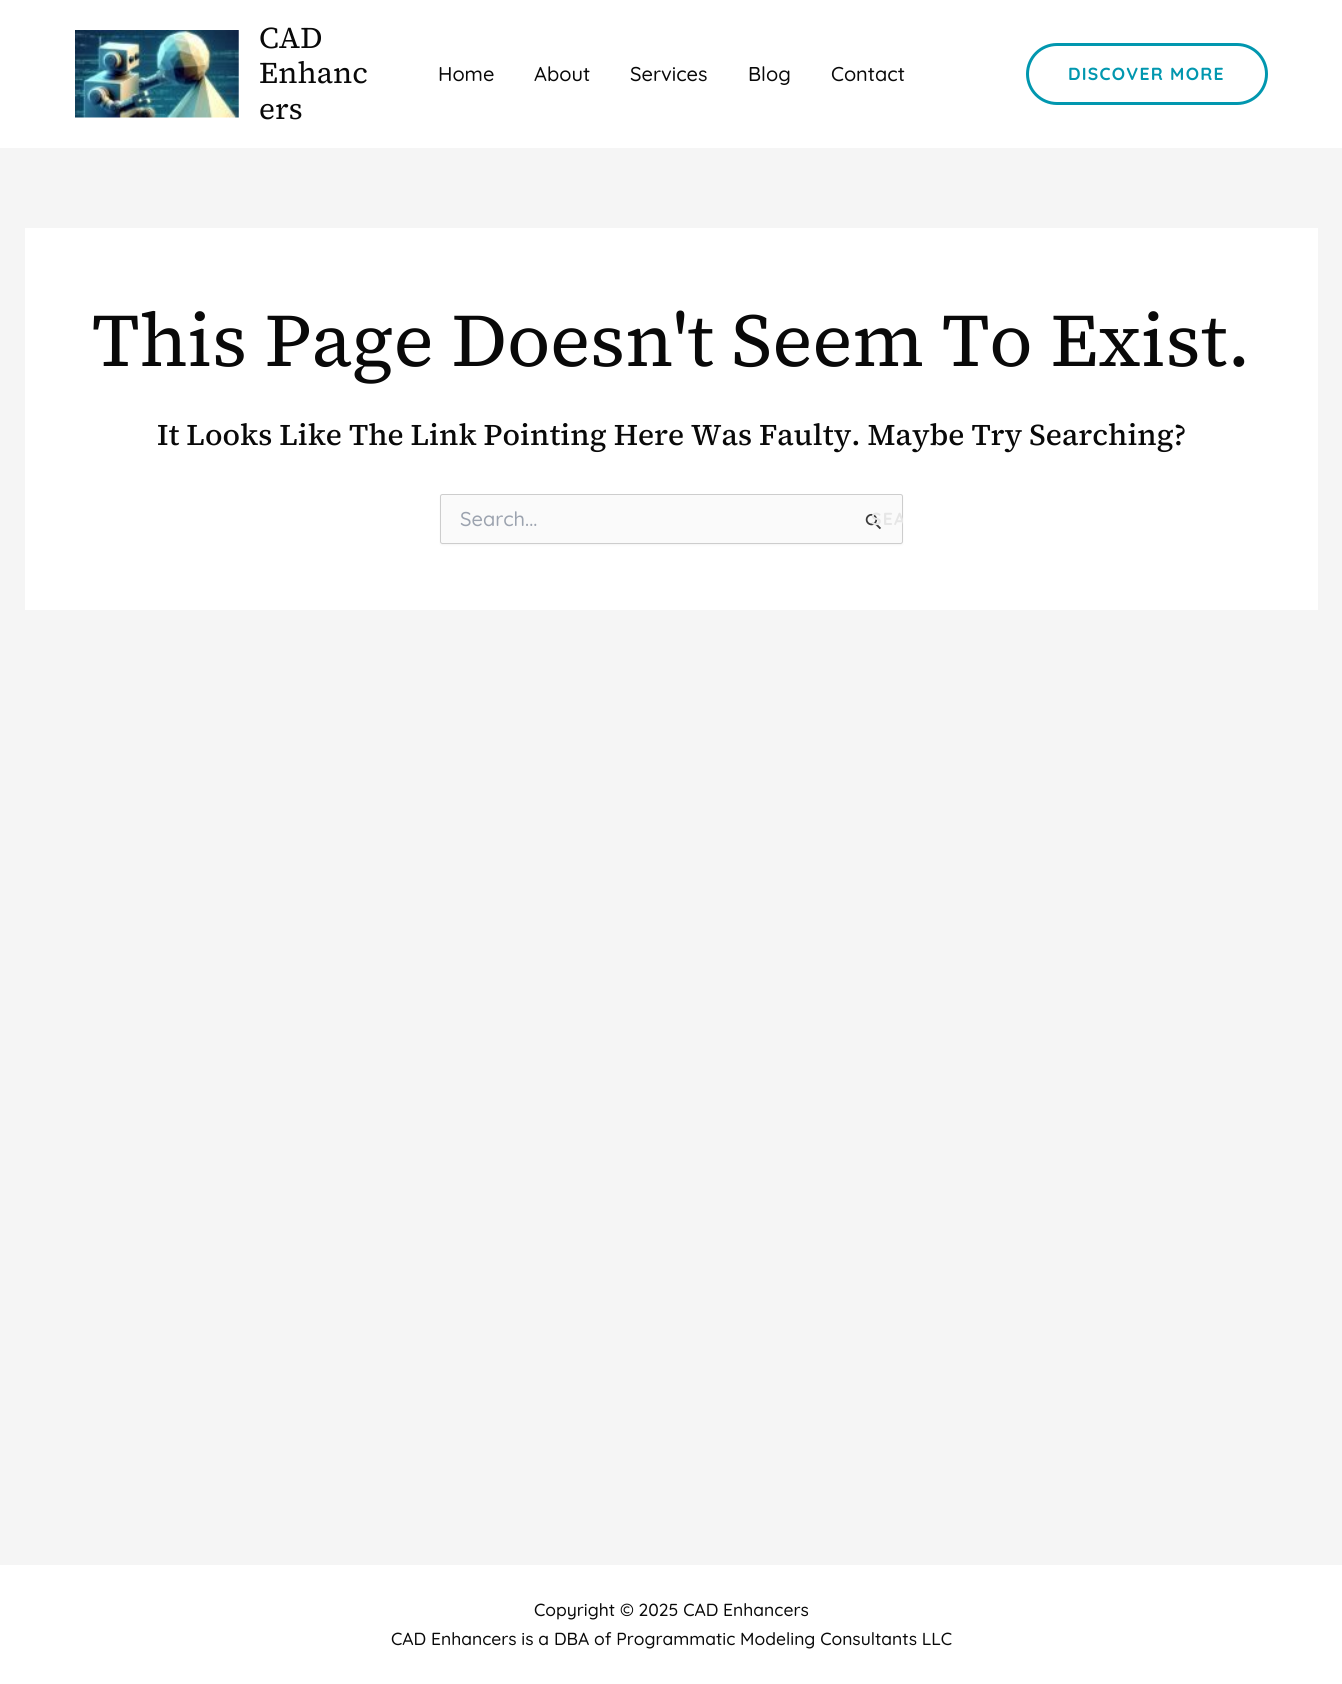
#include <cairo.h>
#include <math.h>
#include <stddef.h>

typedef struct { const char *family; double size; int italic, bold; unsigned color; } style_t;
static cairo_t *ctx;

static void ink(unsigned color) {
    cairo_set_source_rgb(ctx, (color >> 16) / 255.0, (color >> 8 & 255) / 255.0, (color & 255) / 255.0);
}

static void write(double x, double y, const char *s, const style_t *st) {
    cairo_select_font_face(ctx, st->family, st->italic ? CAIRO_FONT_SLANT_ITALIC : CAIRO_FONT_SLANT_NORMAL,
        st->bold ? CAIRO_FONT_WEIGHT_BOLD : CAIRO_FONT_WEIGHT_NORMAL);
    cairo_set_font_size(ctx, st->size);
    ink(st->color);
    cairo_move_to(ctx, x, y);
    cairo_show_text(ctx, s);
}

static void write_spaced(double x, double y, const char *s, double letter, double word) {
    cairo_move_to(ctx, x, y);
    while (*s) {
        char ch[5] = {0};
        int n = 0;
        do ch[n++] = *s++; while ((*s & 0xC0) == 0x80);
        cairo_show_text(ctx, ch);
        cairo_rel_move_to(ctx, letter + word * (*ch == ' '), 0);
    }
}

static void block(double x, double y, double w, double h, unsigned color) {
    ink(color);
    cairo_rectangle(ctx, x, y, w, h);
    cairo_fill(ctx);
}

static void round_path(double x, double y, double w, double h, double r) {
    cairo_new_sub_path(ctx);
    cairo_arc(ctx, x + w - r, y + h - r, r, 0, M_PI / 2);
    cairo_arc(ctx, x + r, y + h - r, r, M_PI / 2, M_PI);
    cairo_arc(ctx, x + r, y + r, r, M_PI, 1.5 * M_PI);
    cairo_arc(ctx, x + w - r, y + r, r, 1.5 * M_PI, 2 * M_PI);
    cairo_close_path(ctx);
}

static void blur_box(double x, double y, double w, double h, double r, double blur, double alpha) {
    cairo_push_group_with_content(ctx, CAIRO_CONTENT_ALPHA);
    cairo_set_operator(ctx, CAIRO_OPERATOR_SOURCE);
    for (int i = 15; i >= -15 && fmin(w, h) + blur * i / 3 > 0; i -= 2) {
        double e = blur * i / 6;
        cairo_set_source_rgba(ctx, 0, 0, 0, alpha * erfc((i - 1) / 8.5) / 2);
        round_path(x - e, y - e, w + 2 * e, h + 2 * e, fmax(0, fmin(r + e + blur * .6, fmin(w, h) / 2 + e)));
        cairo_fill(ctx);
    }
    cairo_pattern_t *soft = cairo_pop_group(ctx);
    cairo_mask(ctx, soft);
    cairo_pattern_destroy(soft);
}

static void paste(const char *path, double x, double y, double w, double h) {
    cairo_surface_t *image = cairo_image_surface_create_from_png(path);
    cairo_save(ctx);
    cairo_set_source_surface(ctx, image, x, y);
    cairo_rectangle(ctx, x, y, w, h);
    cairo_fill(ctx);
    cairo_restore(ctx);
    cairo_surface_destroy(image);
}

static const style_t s1 = {"Source Serif 4", 30, 0, 0, 0x090909};
static const style_t s2 = {"Quicksand Medium", 20, 0, 0, 0x090909};
static const style_t s3 = {"Source Serif 4", 75, 0, 0, 0x090909};
static const style_t s4 = {"Source Serif 4 Medium", 30, 0, 0, 0x090909};
static const style_t s5 = {"Quicksand Medium", 20, 0, 0, 0x9ca3af};
static const style_t s6 = {"Quicksand Medium", 17.5, 0, 0, 0x090909};

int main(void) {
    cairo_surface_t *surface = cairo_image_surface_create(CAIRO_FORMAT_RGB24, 1342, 1684);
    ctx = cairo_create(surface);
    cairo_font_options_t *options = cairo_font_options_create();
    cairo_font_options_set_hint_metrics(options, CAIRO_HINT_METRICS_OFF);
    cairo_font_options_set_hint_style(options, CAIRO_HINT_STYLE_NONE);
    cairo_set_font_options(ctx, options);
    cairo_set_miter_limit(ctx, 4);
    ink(0xf5f5f5);
    cairo_paint(ctx);
    block(0, 0, 1342, 148, 0xffffff);
    paste("pic1.png", 75, 30, 164, 88);
    write(259, 48, "CAD", &s1);
    write(259, 83, "Enhanc", &s1);
    write(259, 119, "ers", &s1);
    write(438, 81, "Home", &s2);
    write(534, 81, "About", &s2);
    write(630, 81, "Services", &s2);
    write(748, 81, "Blog", &s2);
    write(831, 81, "Contact", &s2);
    round_path(1027.5, 44.5, 239, 59, 29.5);
    ink(0x0197af);
    cairo_set_line_width(ctx, 3);
    cairo_stroke(ctx);
    cairo_select_font_face(ctx, "Quicksand", CAIRO_FONT_SLANT_NORMAL, CAIRO_FONT_WEIGHT_BOLD);
    cairo_set_font_size(ctx, 17.5);
    write_spaced(1068, 80, "DISCOVER MORE", 1.25, 0);
    block(25, 228, 1293, 382, 0xffffff);
    write(92, 366, "This Page Doesn't Seem To Exist.", &s3);
    write(157, 445, "It Looks Like The Link Pointing Here Was Faulty. Maybe Try Searching?", &s4);
    ink(0x000000);
    blur_box(440, 495, 463, 50, 2.5, 1, 0.05);
    ink(0xfafafa);
    round_path(440.5, 494.5, 462, 49, 2);
    cairo_fill_preserve(ctx);
    ink(0xcdcdcd);
    cairo_set_line_width(ctx, 1);
    cairo_stroke(ctx);
    write(460, 526, "Search...", &s5);
    paste("pic2.png", 865, 513, 16, 17);
    cairo_save(ctx);
    round_path(846, 494, 57, 50, 2.5);
    cairo_clip(ctx);
    cairo_select_font_face(ctx, "Quicksand", CAIRO_FONT_SLANT_NORMAL, CAIRO_FONT_WEIGHT_BOLD);
    cairo_set_font_size(ctx, 17.5);
    ink(0xe6e6e6);
    write_spaced(871, 525, "SEA", 1.25, 0);
    cairo_restore(ctx);
    block(0, 1565, 1342, 119, 0xffffff);
    write(534, 1616, "Copyright © 2025 CAD Enhancers", &s6);
    write(391, 1645, "CAD Enhancers is a DBA of Programmatic Modeling Consultants LLC", &s6);
    cairo_surface_write_to_png(surface, "screenshot.png");
    cairo_font_options_destroy(options);
    cairo_destroy(ctx);
    cairo_surface_destroy(surface);
    return 0;
}
